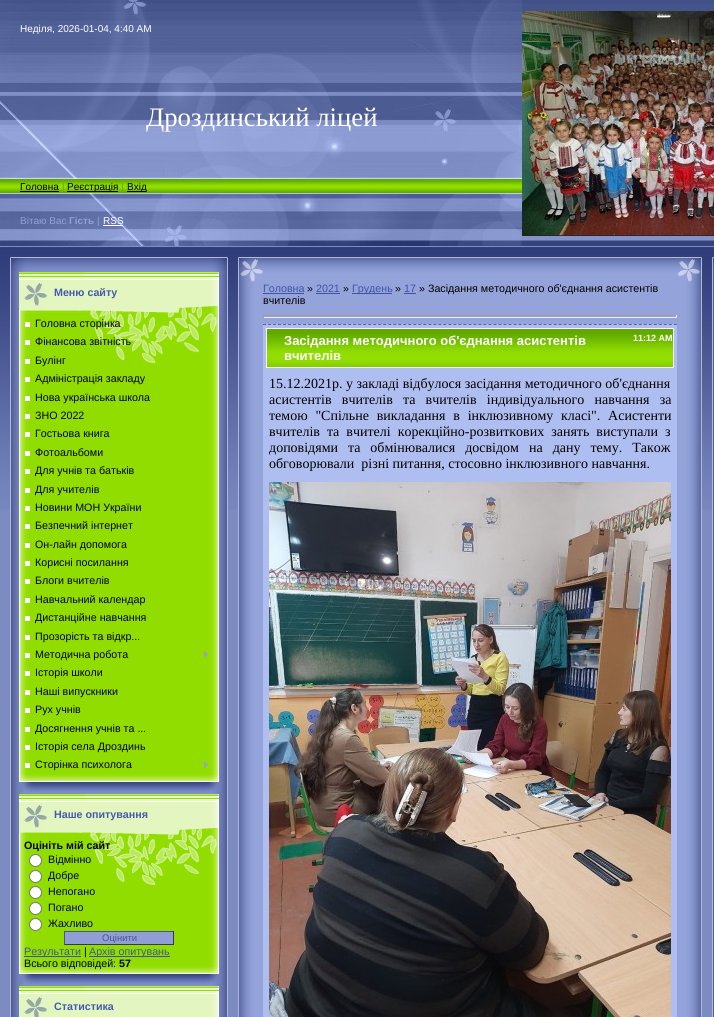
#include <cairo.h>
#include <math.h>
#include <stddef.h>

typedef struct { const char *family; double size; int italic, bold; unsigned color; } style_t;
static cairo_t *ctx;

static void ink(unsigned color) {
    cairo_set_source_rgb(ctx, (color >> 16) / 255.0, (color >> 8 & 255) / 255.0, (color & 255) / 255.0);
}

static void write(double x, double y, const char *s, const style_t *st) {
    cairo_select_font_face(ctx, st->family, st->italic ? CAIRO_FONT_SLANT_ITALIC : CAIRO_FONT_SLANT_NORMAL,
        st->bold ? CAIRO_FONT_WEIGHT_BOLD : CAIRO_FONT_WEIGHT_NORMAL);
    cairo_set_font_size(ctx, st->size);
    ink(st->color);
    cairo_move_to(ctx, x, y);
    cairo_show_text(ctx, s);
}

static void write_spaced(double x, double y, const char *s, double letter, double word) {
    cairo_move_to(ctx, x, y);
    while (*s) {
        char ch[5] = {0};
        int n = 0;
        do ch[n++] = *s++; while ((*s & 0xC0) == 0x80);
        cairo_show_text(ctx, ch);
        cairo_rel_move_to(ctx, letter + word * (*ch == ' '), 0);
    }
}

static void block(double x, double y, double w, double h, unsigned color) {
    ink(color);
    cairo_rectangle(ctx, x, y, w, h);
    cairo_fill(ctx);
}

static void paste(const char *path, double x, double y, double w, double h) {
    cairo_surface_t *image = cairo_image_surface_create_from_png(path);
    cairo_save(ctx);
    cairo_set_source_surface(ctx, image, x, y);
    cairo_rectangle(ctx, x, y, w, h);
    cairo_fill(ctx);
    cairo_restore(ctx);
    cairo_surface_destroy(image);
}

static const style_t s1 = {"Liberation Sans", 10, 0, 0, 0xffffff};
static const style_t s2 = {"Liberation Serif", 26.75, 0, 0, 0xffffff};
static const style_t s3 = {"Liberation Sans", 10, 0, 0, 0x000000};
static const style_t s4 = {"Liberation Sans", 10, 0, 0, 0x61a800};
static const style_t s5 = {"Liberation Sans", 10, 0, 0, 0x90a0d7};
static const style_t s6 = {"Liberation Sans", 10, 0, 1, 0x90a0d7};
static const style_t s7 = {"Liberation Sans", 10.7, 0, 1, 0x4659ae};
static const style_t s8 = {"Liberation Sans", 10.7, 0, 0, 0x000000};
static const style_t s9 = {"Liberation Sans", 10.7, 0, 1, 0x000000};
static const style_t s10 = {"Liberation Sans", 9.5, 0, 0, 0x49548b};
static const style_t s11 = {"Liberation Sans", 10.7, 0, 0, 0x3f53a4};
static const style_t s12 = {"Liberation Sans", 13, 0, 1, 0xffffff};
static const style_t s13 = {"Liberation Sans", 9, 0, 1, 0xffffff};
static const style_t s14 = {"Liberation Serif", 14, 0, 0, 0x000000};

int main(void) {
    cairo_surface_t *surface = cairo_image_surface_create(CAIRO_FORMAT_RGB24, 714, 1017);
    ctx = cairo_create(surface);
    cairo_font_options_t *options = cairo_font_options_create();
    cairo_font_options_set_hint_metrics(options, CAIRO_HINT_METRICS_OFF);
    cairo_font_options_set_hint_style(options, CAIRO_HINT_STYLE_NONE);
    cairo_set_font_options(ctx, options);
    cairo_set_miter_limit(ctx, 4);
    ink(0x7c8cc3);
    cairo_paint(ctx);
    paste("pic1.png", 0, 0, 714, 510);
    paste("pic2.png", 0, 0, 522, 57);
    write(20, 32, "Неділя, 2026-01-04, 4:40 AM", &s1);
    paste("pic3.png", 522, 11, 192, 225);
    paste("pic4.png", 0, 57, 522, 121);
    write(146, 126, "Дроздинський ліцей", &s2);
    paste("pic5.png", 7, 178, 515, 16);
    write(20, 190, "Головна", &s3);
    block(20, 191, 39, 1, 0x000000);
    write(62, 190, "|", &s4);
    block(67, 191, 51, 1, 0x000000);
    write(67, 190, "Реєстрація", &s3);
    write(121, 190, "|", &s4);
    block(127, 191, 19, 1, 0x000000);
    write(127, 190, "Вхід", &s3);
    paste("pic6.png", 0, 194, 522, 53);
    write(20, 224, "Вітаю Вас", &s5);
    write(69, 224, "Гість", &s6);
    write(97, 224, "|", &s5);
    write(103, 224, "RSS", &s1);
    block(103, 225, 20, 1, 0xffffff);
    paste("pic7.png", 10, 271, 218, 746);
    paste("pic8.png", 10, 257, 218, 14);
    paste("pic9.png", 19, 312, 200, 462);
    paste("pic10.png", 19, 272, 200, 40);
    write(54, 296, "Меню сайту", &s7);
    paste("pic11.png", 19, 774, 200, 20);
    block(25, 322, 5, 5, 0xffffff);
    write(35, 327, "Головна сторінка", &s8);
    block(25, 340, 5, 5, 0xffffff);
    write(35, 345, "Фінансова звітність", &s8);
    block(25, 359, 5, 5, 0xffffff);
    write(35, 364, "Булінг", &s8);
    block(25, 377, 5, 5, 0xffffff);
    write(35, 382, "Адміністрація закладу", &s8);
    block(25, 396, 5, 5, 0xffffff);
    write(35, 401, "Нова українська школа", &s8);
    block(25, 414, 5, 5, 0xffffff);
    write(35, 419, "ЗНО 2022", &s8);
    block(25, 432, 5, 5, 0xffffff);
    write(35, 437, "Гостьова книга", &s8);
    block(25, 451, 5, 5, 0xffffff);
    write(35, 456, "Фотоальбоми", &s8);
    block(25, 469, 5, 5, 0xffffff);
    write(35, 474, "Для учнів та батьків", &s8);
    block(25, 488, 5, 5, 0xffffff);
    write(35, 493, "Для учителів", &s8);
    block(25, 506, 5, 5, 0xffffff);
    write(35, 511, "Новини МОН України", &s8);
    block(25, 524, 5, 5, 0xffffff);
    write(35, 529, "Безпечний інтернет", &s8);
    block(25, 543, 5, 5, 0xffffff);
    write(35, 548, "Он-лайн допомога", &s8);
    block(25, 561, 5, 5, 0xffffff);
    write(35, 566, "Корисні посилання", &s8);
    block(25, 579, 5, 5, 0xffffff);
    write(35, 584, "Блоги вчителів", &s8);
    block(25, 598, 5, 5, 0xffffff);
    write(35, 603, "Навчальний календар", &s8);
    block(25, 616, 5, 5, 0xffffff);
    write(35, 621, "Дистанційне навчання", &s8);
    block(25, 635, 5, 5, 0xffffff);
    write(35, 640, "Прозорість та відкр...", &s8);
    block(25, 653, 5, 5, 0xffffff);
    write(35, 658, "Методична робота", &s8);
    paste("pic12.png", 204, 651, 4, 7);
    block(25, 671, 5, 5, 0xffffff);
    write(35, 676, "Історія школи", &s8);
    block(25, 690, 5, 5, 0xffffff);
    write(35, 695, "Наші випускники", &s8);
    block(25, 708, 5, 5, 0xffffff);
    write(35, 713, "Рух учнів", &s8);
    block(25, 727, 5, 5, 0xffffff);
    write(35, 732, "Досягнення учнів та ...", &s8);
    block(25, 745, 5, 5, 0xffffff);
    write(35, 750, "Історія села Дроздинь", &s8);
    block(25, 763, 5, 5, 0xffffff);
    write(35, 768, "Сторінка психолога", &s8);
    paste("pic12.png", 204, 761, 4, 7);
    paste("pic13.png", 19, 834, 200, 132);
    paste("pic10.png", 19, 794, 200, 40);
    write(54, 818, "Наше опитування", &s7);
    paste("pic11.png", 19, 966, 200, 20);
    write(24, 849, "Оцініть мій сайт", &s9);
    ink(0xffffff);
    cairo_new_path(ctx);
    cairo_arc(ctx, 35.5, 860.5, 6, 0, 2 * M_PI);
    cairo_fill_preserve(ctx);
    ink(0x767676);
    cairo_set_line_width(ctx, 1);
    cairo_stroke(ctx);
    write(48, 863, "Відмінно", &s8);
    ink(0xffffff);
    cairo_new_path(ctx);
    cairo_arc(ctx, 35.5, 876.5, 6, 0, 2 * M_PI);
    cairo_fill_preserve(ctx);
    ink(0x767676);
    cairo_stroke(ctx);
    write(48, 879, "Добре", &s8);
    ink(0xffffff);
    cairo_new_path(ctx);
    cairo_arc(ctx, 35.5, 892.5, 6, 0, 2 * M_PI);
    cairo_fill_preserve(ctx);
    ink(0x767676);
    cairo_stroke(ctx);
    write(48, 895, "Непогано", &s8);
    ink(0xffffff);
    cairo_new_path(ctx);
    cairo_arc(ctx, 35.5, 908.5, 6, 0, 2 * M_PI);
    cairo_fill_preserve(ctx);
    ink(0x767676);
    cairo_stroke(ctx);
    write(48, 911, "Погано", &s8);
    ink(0xffffff);
    cairo_new_path(ctx);
    cairo_arc(ctx, 35.5, 924.5, 6, 0, 2 * M_PI);
    cairo_fill_preserve(ctx);
    ink(0x767676);
    cairo_stroke(ctx);
    write(48, 927, "Жахливо", &s8);
    block(65, 932, 108, 12, 0x8f9fd4);
    block(64, 931, 110, 1, 0x49548b);
    block(173, 931, 1, 14, 0x31385d);
    block(64, 944, 110, 1, 0x31385d);
    block(64, 931, 1, 14, 0x49548b);
    write(102, 941, "Оцінити", &s10);
    block(24, 956, 57, 1, 0x3f53a4);
    write(24, 955, "Результати", &s11);
    write(84, 955, "|", &s8);
    block(89, 956, 81, 1, 0x3f53a4);
    write(89, 955, "Архів опитувань", &s11);
    write(24, 967, "Всього відповідей:", &s8);
    write(119, 967, "57", &s9);
    paste("pic14.png", 19, 986, 200, 31);
    write(54, 1010, "Статистика", &s7);
    paste("pic15.png", 238, 257, 25, 25);
    paste("pic16.png", 263, 257, 414, 25);
    paste("pic17.png", 677, 257, 25, 25);
    paste("pic18.png", 238, 282, 25, 735);
    block(263, 282, 414, 42, 0x94a4db);
    write(263, 292, "Головна", &s11);
    block(263, 293, 41, 1, 0x3f53a4);
    write(307, 292, "»", &s8);
    write(316, 292, "2021", &s11);
    block(316, 293, 24, 1, 0x3f53a4);
    write(343, 292, "»", &s8);
    block(352, 293, 40, 1, 0x3f53a4);
    write(352, 292, "Грудень", &s11);
    write(395, 292, "»", &s8);
    write(404, 292, "17", &s11);
    block(404, 293, 12, 1, 0x3f53a4);
    write(419, 292, "» Засідання методичного об'єднання асистентів", &s8);
    write(263, 304, "вчителів", &s8);
    block(263, 315, 414, 1, 0x9f9f9f);
    block(676, 315, 1, 3, 0xeeeeee);
    block(263, 317, 414, 1, 0xeeeeee);
    block(263, 315, 1, 3, 0x9f9f9f);
    block(263, 324, 414, 693, 0xafbef1);
    cairo_new_path(ctx);
    cairo_move_to(ctx, 263, 324.5);
    cairo_line_to(ctx, 677, 324.5);
    ink(0x55649e);
    cairo_set_dash(ctx, (double[]){3, 2.01}, 2, 0);
    cairo_stroke(ctx);
    block(267, 329, 406, 5, 0x61a800);
    paste("pic19.png", 267, 334, 406, 33);
    cairo_rectangle(ctx, 266.5, 328.5, 407, 39);
    ink(0xffffff);
    cairo_set_dash(ctx, NULL, 0, 0);
    cairo_stroke(ctx);
    write(284, 345, "Засідання методичного об'єднання асистентів", &s12);
    write(633, 341, "11:12 AM", &s13);
    write(284, 360, "вчителів", &s12);
    write(269, 388, "15.12.2021р. у закладі відбулося засідання методичного об'єднання", &s14);
    write_spaced(269, 404, "асистентів вчителів та вчителів індивідуального навчання за", 0, 6.75);
    write_spaced(269, 420, "темою \"Спільне викладання в інклюзивному класі\". Асистенти", 0, 4.25);
    write_spaced(269, 436, "вчителів та вчителі корекційно-розвиткових занять виступали з", 0, 3.5);
    write_spaced(269, 452, "доповідями та обмінювалися досвідом на дану тему. Також", 0, 6.5);
    write(269, 468, "обговорювали  різні питання, стосовно інклюзивного навчання.", &s14);
    paste("pic20.png", 269, 482, 402, 535);
    paste("pic21.png", 677, 282, 25, 735);
    paste("pic22.png", 712, 269, 2, 748);
    paste("pic23.png", 712, 257, 2, 12);
    cairo_surface_write_to_png(surface, "screenshot.png");
    cairo_font_options_destroy(options);
    cairo_destroy(ctx);
    cairo_surface_destroy(surface);
    return 0;
}
